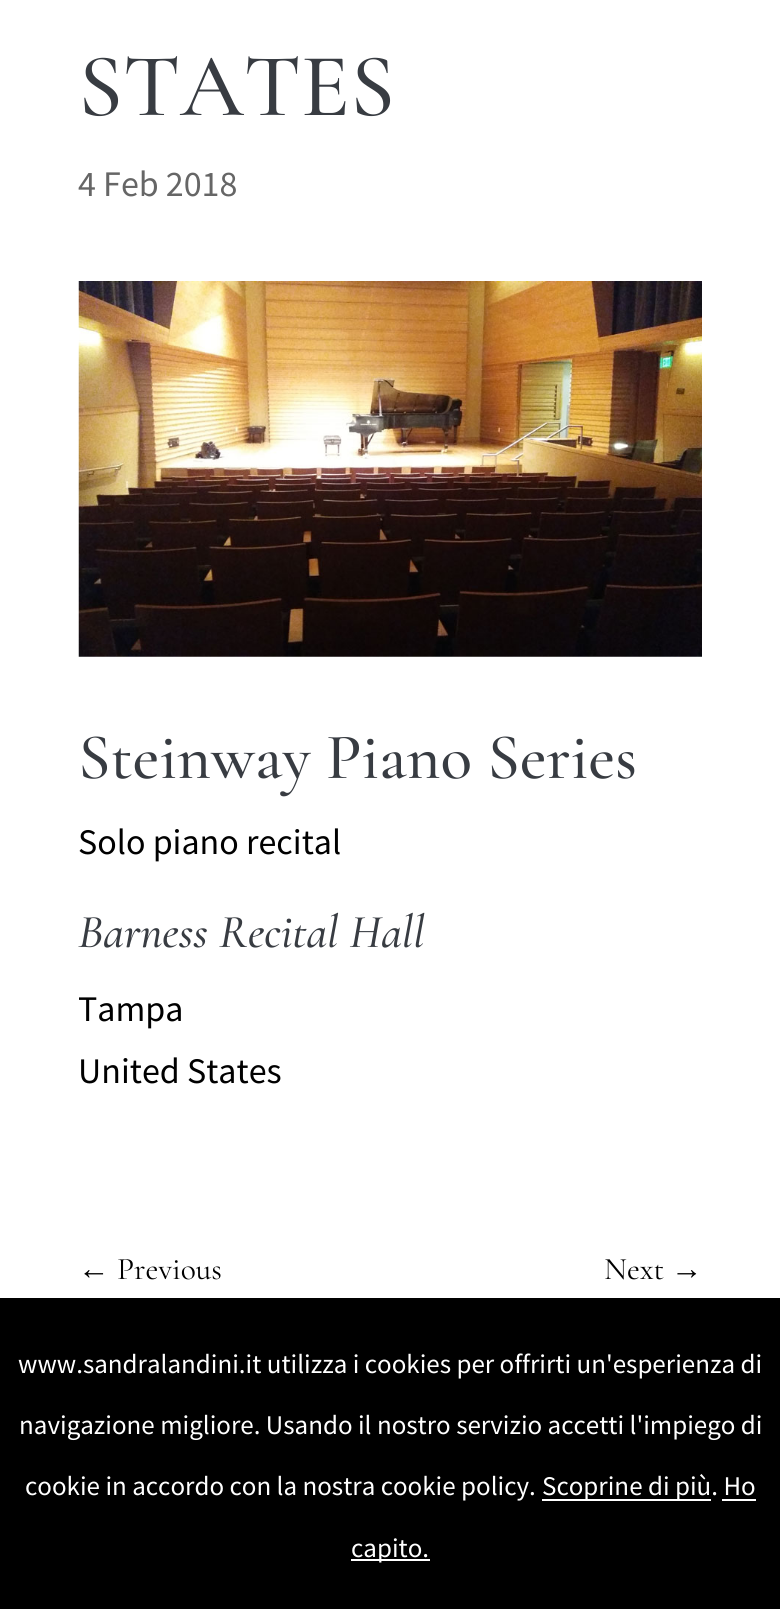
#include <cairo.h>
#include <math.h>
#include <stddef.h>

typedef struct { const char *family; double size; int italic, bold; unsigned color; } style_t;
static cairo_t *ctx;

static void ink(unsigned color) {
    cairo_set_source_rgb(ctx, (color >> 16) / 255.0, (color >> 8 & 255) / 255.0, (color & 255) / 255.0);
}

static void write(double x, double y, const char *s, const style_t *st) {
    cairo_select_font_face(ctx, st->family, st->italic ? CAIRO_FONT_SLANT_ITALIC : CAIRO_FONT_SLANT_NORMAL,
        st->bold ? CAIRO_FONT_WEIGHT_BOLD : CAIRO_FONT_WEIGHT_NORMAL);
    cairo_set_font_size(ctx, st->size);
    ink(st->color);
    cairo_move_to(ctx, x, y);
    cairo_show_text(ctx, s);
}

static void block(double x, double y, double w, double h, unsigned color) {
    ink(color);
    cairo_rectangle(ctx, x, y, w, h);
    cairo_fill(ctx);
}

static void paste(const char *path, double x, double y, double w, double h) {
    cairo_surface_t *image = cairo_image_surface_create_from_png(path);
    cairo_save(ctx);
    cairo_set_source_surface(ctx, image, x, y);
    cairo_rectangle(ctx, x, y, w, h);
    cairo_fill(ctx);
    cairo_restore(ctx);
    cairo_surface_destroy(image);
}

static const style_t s1 = {"Cormorant Garamond Medium", 90, 0, 0, 0x383c42};
static const style_t s2 = {"Source Sans Pro", 36, 0, 0, 0x666666};
static const style_t s3 = {"Cormorant Garamond Medium", 65.25, 0, 0, 0x383c42};
static const style_t s4 = {"Source Sans Pro", 36, 0, 0, 0x000000};
static const style_t s5 = {"Cormorant Garamond Medium", 47.25, 1, 0, 0x383c42};
static const style_t s6 = {"Liberation Serif", 31.5, 0, 0, 0x000000};
static const style_t s7 = {"Cormorant Garamond", 31.5, 0, 0, 0x000000};
static const style_t s8 = {"Source Sans Pro", 27, 0, 0, 0xffffff};

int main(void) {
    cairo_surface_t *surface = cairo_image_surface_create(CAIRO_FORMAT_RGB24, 780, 1609);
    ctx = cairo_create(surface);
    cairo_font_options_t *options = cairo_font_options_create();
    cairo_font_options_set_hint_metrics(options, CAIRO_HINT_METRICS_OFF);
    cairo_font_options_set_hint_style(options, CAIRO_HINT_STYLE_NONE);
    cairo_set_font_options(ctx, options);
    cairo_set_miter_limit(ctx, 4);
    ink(0xffffff);
    cairo_paint(ctx);
    write(78, 115, "STATES", &s1);
    write(78, 196, "4 Feb 2018", &s2);
    paste("pic1.png", 78, 281, 624, 376);
    write(78, 778, "Steinway Piano Series", &s3);
    write(78, 854, "Solo piano recital", &s4);
    write(78, 947, "Barness Recital Hall", &s5);
    write(78, 1021, "Tampa", &s4);
    write(78, 1083, "United States", &s4);
    write(78, 1279, "←", &s6);
    write(117, 1279, "Previous", &s7);
    write(604, 1279, "Next", &s7);
    write(671, 1279, "→", &s6);
    block(0, 1298, 780, 311, 0x000000);
    write(18, 1373, "www.sandralandini.it utilizza i cookies per offrirti un'esperienza di", &s8);
    write(19, 1434, "navigazione migliore. Usando il nostro servizio accetti l'impiego di", &s8);
    write(25, 1495, "cookie in accordo con la nostra cookie policy.", &s8);
    block(542, 1499, 169, 2, 0xffffff);
    write(542, 1495, "Scoprine di più. Ho", &s8);
    block(351, 1559, 79, 2, 0xffffff);
    write(351, 1557, "capito.", &s8);
    block(722, 1499, 34, 2, 0xffffff);
    cairo_surface_write_to_png(surface, "screenshot.png");
    cairo_font_options_destroy(options);
    cairo_destroy(ctx);
    cairo_surface_destroy(surface);
    return 0;
}
